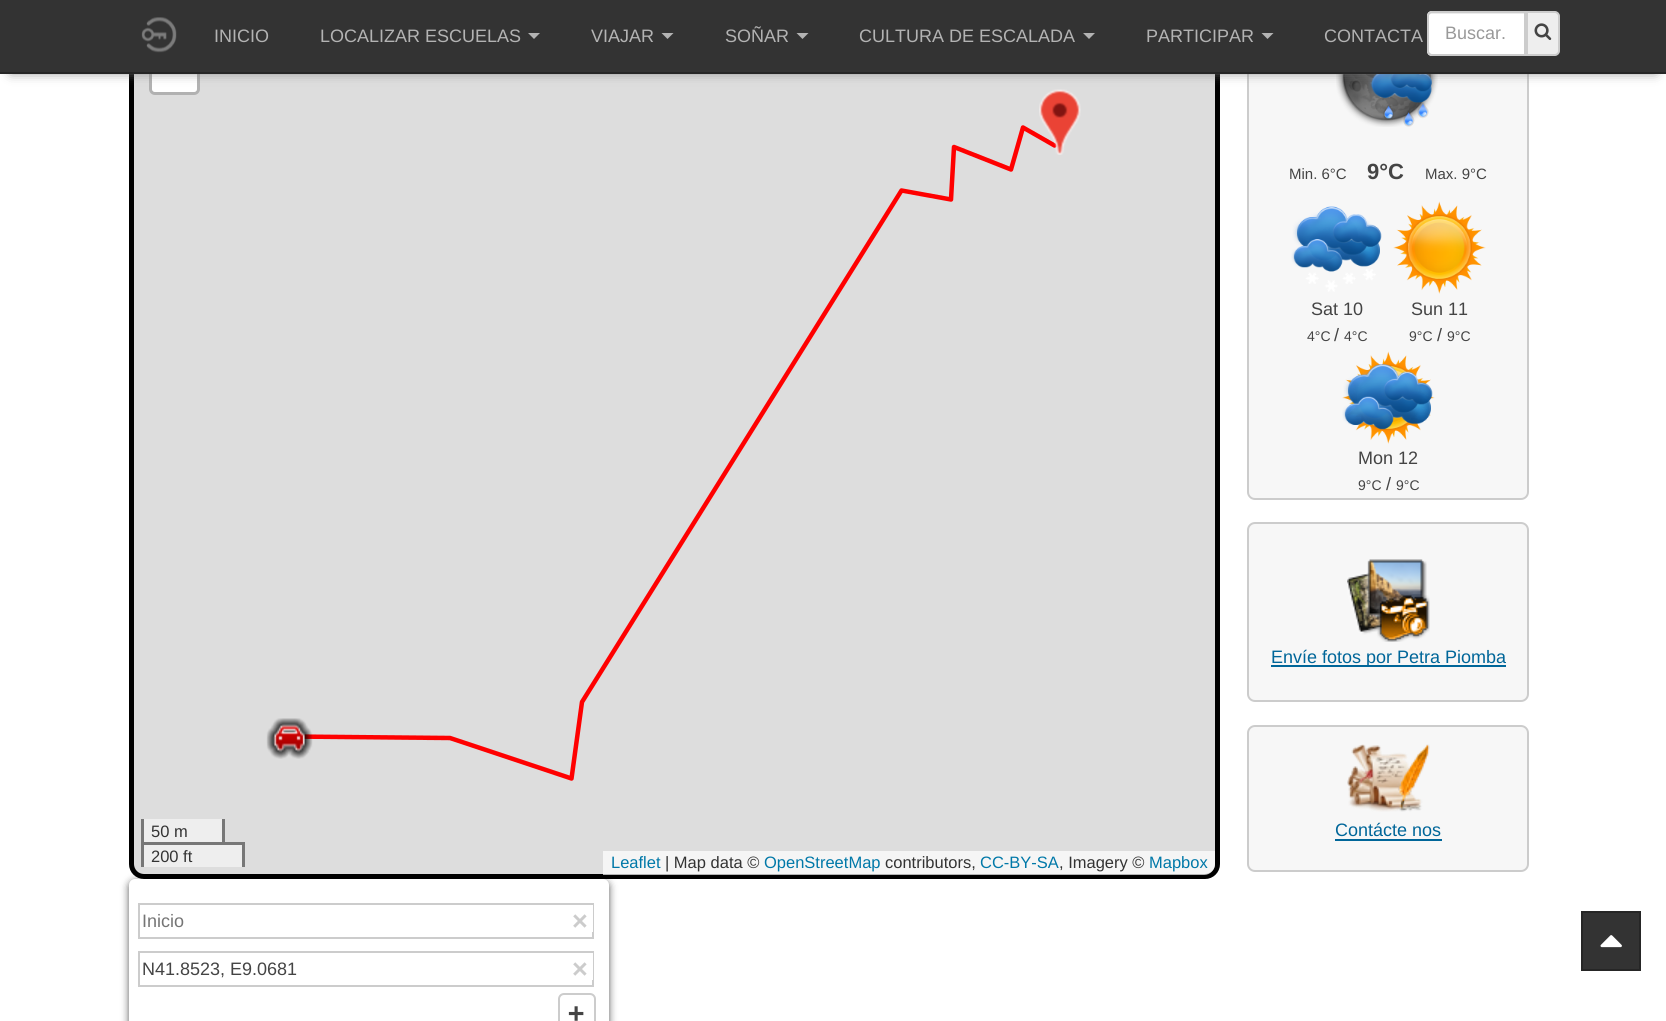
#include <cairo.h>
#include <math.h>
#include <stddef.h>

typedef struct { const char *family; double size; int italic, bold; unsigned color; } style_t;
static cairo_t *ctx;

static void ink(unsigned color) {
    cairo_set_source_rgb(ctx, (color >> 16) / 255.0, (color >> 8 & 255) / 255.0, (color & 255) / 255.0);
}

static void write(double x, double y, const char *s, const style_t *st) {
    cairo_select_font_face(ctx, st->family, st->italic ? CAIRO_FONT_SLANT_ITALIC : CAIRO_FONT_SLANT_NORMAL,
        st->bold ? CAIRO_FONT_WEIGHT_BOLD : CAIRO_FONT_WEIGHT_NORMAL);
    cairo_set_font_size(ctx, st->size);
    ink(st->color);
    cairo_move_to(ctx, x, y);
    cairo_show_text(ctx, s);
}

static void block(double x, double y, double w, double h, unsigned color) {
    ink(color);
    cairo_rectangle(ctx, x, y, w, h);
    cairo_fill(ctx);
}

static void round_path(double x, double y, double w, double h, double r) {
    cairo_new_sub_path(ctx);
    cairo_arc(ctx, x + w - r, y + h - r, r, 0, M_PI / 2);
    cairo_arc(ctx, x + r, y + h - r, r, M_PI / 2, M_PI);
    cairo_arc(ctx, x + r, y + r, r, M_PI, 1.5 * M_PI);
    cairo_arc(ctx, x + w - r, y + r, r, 1.5 * M_PI, 2 * M_PI);
    cairo_close_path(ctx);
}

static void blur_box(double x, double y, double w, double h, double r, double blur, double alpha) {
    cairo_push_group_with_content(ctx, CAIRO_CONTENT_ALPHA);
    cairo_set_operator(ctx, CAIRO_OPERATOR_SOURCE);
    for (int i = 15; i >= -15 && fmin(w, h) + blur * i / 3 > 0; i -= 2) {
        double e = blur * i / 6;
        cairo_set_source_rgba(ctx, 0, 0, 0, alpha * erfc((i - 1) / 8.5) / 2);
        round_path(x - e, y - e, w + 2 * e, h + 2 * e, fmax(0, fmin(r + e + blur * .6, fmin(w, h) / 2 + e)));
        cairo_fill(ctx);
    }
    cairo_pattern_t *soft = cairo_pop_group(ctx);
    cairo_mask(ctx, soft);
    cairo_pattern_destroy(soft);
}

static void paste(const char *path, double x, double y, double w, double h) {
    cairo_surface_t *image = cairo_image_surface_create_from_png(path);
    cairo_save(ctx);
    cairo_set_source_surface(ctx, image, x, y);
    cairo_rectangle(ctx, x, y, w, h);
    cairo_fill(ctx);
    cairo_restore(ctx);
    cairo_surface_destroy(image);
}

static const style_t s1 = {"Liberation Sans", 18, 0, 0, 0xb3b3b3};
static const style_t s2 = {"Liberation Sans", 18, 0, 0, 0x999999};
static const style_t s3 = {"Liberation Sans", 15, 0, 0, 0x444444};
static const style_t s4 = {"Liberation Sans", 22, 0, 1, 0x444444};
static const style_t s5 = {"Liberation Sans", 18, 0, 0, 0x444444};
static const style_t s6 = {"Liberation Sans", 14, 0, 0, 0x444444};
static const style_t s7 = {"Liberation Sans", 18, 0, 0, 0x006699};
static const style_t s8 = {"Liberation Sans", 16.5, 0, 0, 0x333333};
static const style_t s9 = {"Liberation Sans", 16.5, 0, 0, 0x0078a8};
static const style_t s10 = {"Liberation Sans", 18, 0, 0, 0x757575};
static const style_t s11 = {"Liberation Sans", 27, 0, 1, 0xcccccc};
static const style_t s12 = {"DejaVu Sans Mono", 27, 0, 1, 0x444444};

int main(void) {
    cairo_surface_t *surface = cairo_image_surface_create(CAIRO_FORMAT_RGB24, 1666, 1021);
    ctx = cairo_create(surface);
    cairo_font_options_t *options = cairo_font_options_create();
    cairo_font_options_set_hint_metrics(options, CAIRO_HINT_METRICS_OFF);
    cairo_font_options_set_hint_style(options, CAIRO_HINT_STYLE_NONE);
    cairo_set_font_options(ctx, options);
    cairo_set_miter_limit(ctx, 4);
    ink(0xffffff);
    cairo_paint(ctx);
    ink(0xf7f7f7);
    round_path(1248, -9, 280, 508, 7);
    cairo_fill_preserve(ctx);
    ink(0xcccccc);
    cairo_stroke(ctx);
    paste("pic3.png", 1336, 74, 102, 53);
    ink(0x000000);
    blur_box(129, 881, 480, 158, 6, 4, 0.65);
    ink(0xdddddd);
    round_path(129, -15, 1091, 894, 15);
    cairo_fill(ctx);
    block(144, 845, 98, 22, 0xeeeeee);
    round_path(131.5, -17.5, 1086, 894, 12.5);
    ink(0x000000);
    cairo_set_line_width(ctx, 5);
    cairo_stroke(ctx);
    cairo_new_path(ctx);
    cairo_move_to(ctx, 289.5, 736.5);
    cairo_line_to(ctx, 450, 738);
    cairo_line_to(ctx, 571.5, 778.5);
    cairo_line_to(ctx, 582, 702);
    cairo_line_to(ctx, 901.5, 190.5);
    cairo_line_to(ctx, 951, 199.5);
    cairo_line_to(ctx, 954, 147);
    cairo_line_to(ctx, 1011, 169.5);
    cairo_line_to(ctx, 1023, 127.5);
    cairo_line_to(ctx, 1054.5, 145.5);
    ink(0xff0000);
    cairo_set_line_width(ctx, 4.5);
    cairo_set_line_cap(ctx, CAIRO_LINE_CAP_ROUND);
    cairo_set_line_join(ctx, CAIRO_LINE_JOIN_ROUND);
    cairo_stroke(ctx);
    paste("pic9.png", 1039, 89, 42, 66);
    round_path(150.5, 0.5, 48, 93, 4.5);
    ink(0xb1b1b1);
    cairo_set_line_width(ctx, 3);
    cairo_set_line_cap(ctx, CAIRO_LINE_CAP_BUTT);
    cairo_set_line_join(ctx, CAIRO_LINE_JOIN_MITER);
    cairo_stroke(ctx);
    ink(0xffffff);
    cairo_new_path(ctx);
    cairo_move_to(ctx, 152, 47);
    cairo_line_to(ctx, 197, 47);
    cairo_line_to(ctx, 197, 89);
    cairo_curve_to(ctx, 197, 90.5, 195.5, 92, 194, 92);
    cairo_line_to(ctx, 155, 92);
    cairo_curve_to(ctx, 153.5, 92, 152, 90.5, 152, 89);
    cairo_close_path(ctx);
    cairo_fill(ctx);
    ink(0x808080);
    blur_box(11, 20, 1645, 52, 0, 6, 1);
    block(0, 0, 1666, 72, 0x333333);
    block(0, 72, 1666, 2, 0x262626);
    write(214, 42, "INICIO", &s1);
    write(320, 42, "LOCALIZAR ESCUELAS", &s1);
    cairo_new_path(ctx);
    cairo_move_to(ctx, 528, 33);
    cairo_line_to(ctx, 540, 33);
    cairo_line_to(ctx, 534, 39);
    cairo_close_path(ctx);
    cairo_fill(ctx);
    write(591, 42, "VIAJAR", &s1);
    cairo_new_path(ctx);
    cairo_move_to(ctx, 661.5, 33);
    cairo_line_to(ctx, 673.5, 33);
    cairo_line_to(ctx, 667.5, 39);
    cairo_close_path(ctx);
    cairo_fill(ctx);
    write(725, 42, "SOÑAR", &s1);
    cairo_new_path(ctx);
    cairo_move_to(ctx, 796.5, 33);
    cairo_line_to(ctx, 808.5, 33);
    cairo_line_to(ctx, 802.5, 39);
    cairo_close_path(ctx);
    cairo_fill(ctx);
    write(859, 42, "CULTURA DE ESCALADA", &s1);
    cairo_new_path(ctx);
    cairo_move_to(ctx, 1083, 33);
    cairo_line_to(ctx, 1095, 33);
    cairo_line_to(ctx, 1089, 39);
    cairo_close_path(ctx);
    cairo_fill(ctx);
    write(1146, 42, "PARTICIPAR", &s1);
    cairo_new_path(ctx);
    cairo_move_to(ctx, 1261.5, 33);
    cairo_line_to(ctx, 1273.5, 33);
    cairo_line_to(ctx, 1267.5, 39);
    cairo_close_path(ctx);
    cairo_fill(ctx);
    write(1324, 42, "CONTACTA", &s1);
    paste("pic1.png", 141, 17, 36, 36);
    ink(0xffffff);
    cairo_new_path(ctx);
    cairo_move_to(ctx, 1432, 11);
    cairo_line_to(ctx, 1526, 11);
    cairo_line_to(ctx, 1526, 56);
    cairo_line_to(ctx, 1432, 56);
    cairo_curve_to(ctx, 1429, 56, 1427, 54, 1427, 51);
    cairo_line_to(ctx, 1427, 16);
    cairo_curve_to(ctx, 1427, 13, 1429, 11, 1432, 11);
    cairo_close_path(ctx);
    cairo_fill(ctx);
    ink(0xececec);
    cairo_new_path(ctx);
    cairo_move_to(ctx, 1431, 14);
    cairo_line_to(ctx, 1524, 14);
    cairo_line_to(ctx, 1524, 12);
    cairo_line_to(ctx, 1431, 12);
    cairo_curve_to(ctx, 1429, 12, 1428, 13, 1428, 15);
    cairo_line_to(ctx, 1428, 16);
    cairo_curve_to(ctx, 1428, 15, 1429, 14, 1431, 14);
    cairo_close_path(ctx);
    cairo_fill(ctx);
    cairo_new_path(ctx);
    cairo_move_to(ctx, 1432, 12);
    cairo_line_to(ctx, 1525, 12);
    cairo_line_to(ctx, 1525, 55);
    cairo_line_to(ctx, 1432, 55);
    cairo_curve_to(ctx, 1430, 55, 1428, 53, 1428, 51);
    cairo_line_to(ctx, 1428, 16);
    cairo_curve_to(ctx, 1428, 14, 1430, 12, 1432, 12);
    cairo_close_path(ctx);
    ink(0xcccccc);
    cairo_set_line_width(ctx, 2);
    cairo_stroke(ctx);
    write(1445, 39, "Buscar.", &s2);
    ink(0xeeeeee);
    cairo_new_path(ctx);
    cairo_move_to(ctx, 1527, 12);
    cairo_line_to(ctx, 1555, 12);
    cairo_curve_to(ctx, 1557, 12, 1559, 14, 1559, 16);
    cairo_line_to(ctx, 1559, 51);
    cairo_curve_to(ctx, 1559, 53, 1557, 55, 1555, 55);
    cairo_line_to(ctx, 1527, 55);
    cairo_close_path(ctx);
    cairo_fill_preserve(ctx);
    ink(0xcccccc);
    cairo_stroke(ctx);
    paste("pic2.png", 1534, 23, 18, 17);
    write(1289, 179, "Min. 6°C", &s3);
    write(1367, 179, "9°C", &s4);
    write(1425, 179, "Max. 9°C", &s3);
    paste("pic4.png", 1291, 206, 91, 86);
    write(1311, 315, "Sat 10", &s5);
    write(1307, 341, "4°C", &s6);
    write(1334, 341, "/", &s5);
    write(1344, 341, "4°C", &s6);
    paste("pic5.png", 1393, 201, 93, 93);
    write(1411, 315, "Sun 11", &s5);
    write(1409, 341, "9°C", &s6);
    write(1437, 341, "/", &s5);
    write(1447, 341, "9°C", &s6);
    paste("pic6.png", 1342, 351, 93, 93);
    write(1358, 464, "Mon 12", &s5);
    write(1358, 490, "9°C", &s6);
    write(1386, 490, "/", &s5);
    write(1396, 490, "9°C", &s6);
    ink(0xf7f7f7);
    round_path(1248, 523, 280, 178, 7);
    cairo_fill_preserve(ctx);
    ink(0xcccccc);
    cairo_stroke(ctx);
    paste("pic7.png", 1347, 559, 83, 83);
    block(1271, 665, 235, 2, 0x006699);
    write(1271, 663, "Envíe fotos por Petra Piomba", &s7);
    ink(0xf7f7f7);
    round_path(1248, 726, 280, 145, 7);
    cairo_fill_preserve(ctx);
    ink(0xcccccc);
    cairo_stroke(ctx);
    paste("pic8.png", 1347, 744, 83, 68);
    write(1335, 836, "Contácte nos", &s7);
    block(1335, 839, 107, 2, 0x006699);
    paste("pic10.png", 266, 718, 47, 41);
    block(144, 819, 78, 23, 0xeeeeee);
    block(222, 819, 3, 26, 0x777777);
    block(141, 819, 3, 26, 0x777777);
    write(151, 837, "50 m", &s8);
    block(141, 842, 104, 3, 0x777777);
    block(242, 842, 3, 25, 0x777777);
    block(141, 842, 3, 25, 0x777777);
    write(151, 862, "200 ft", &s8);
    cairo_set_source_rgba(ctx, 1, 1, 1, 0.7);
    cairo_new_path(ctx);
    cairo_move_to(ctx, 603, 851);
    cairo_line_to(ctx, 1215, 851);
    cairo_line_to(ctx, 1215, 864);
    cairo_curve_to(ctx, 1215, 870, 1210, 875, 1204, 875);
    cairo_line_to(ctx, 603, 875);
    cairo_close_path(ctx);
    cairo_fill(ctx);
    write(611, 868, "Leaflet", &s9);
    write(665, 868, "| Map data ©", &s8);
    write(764, 868, "OpenStreetMap", &s9);
    write(885, 868, "contributors,", &s8);
    write(980, 868, "CC-BY-SA", &s9);
    write(1059, 868, ", Imagery ©", &s8);
    write(1149, 868, "Mapbox", &s9);
    ink(0xffffff);
    round_path(129, 879, 480, 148, 6);
    cairo_fill(ctx);
    cairo_rectangle(ctx, 139, 904, 454, 34);
    ink(0xcccccc);
    cairo_stroke(ctx);
    write(142, 927, "Inicio", &s10);
    block(592, 905, 1, 27, 0xffffff);
    write(572, 930, "×", &s11);
    cairo_rectangle(ctx, 139, 952, 454, 34);
    cairo_stroke(ctx);
    write(142, 975, "N41.8523, E9.0681", &s5);
    block(592, 953, 1, 27, 0xffffff);
    write(572, 978, "×", &s11);
    round_path(559, 994, 36, 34, 5);
    cairo_stroke(ctx);
    write(568, 1022, "+", &s12);
    ink(0x333333);
    cairo_rectangle(ctx, 1582, 912, 58, 58);
    cairo_fill_preserve(ctx);
    ink(0x262626);
    cairo_stroke(ctx);
    paste("pic11.png", 1600, 935, 22, 13);
    cairo_surface_write_to_png(surface, "screenshot.png");
    cairo_font_options_destroy(options);
    cairo_destroy(ctx);
    cairo_surface_destroy(surface);
    return 0;
}
